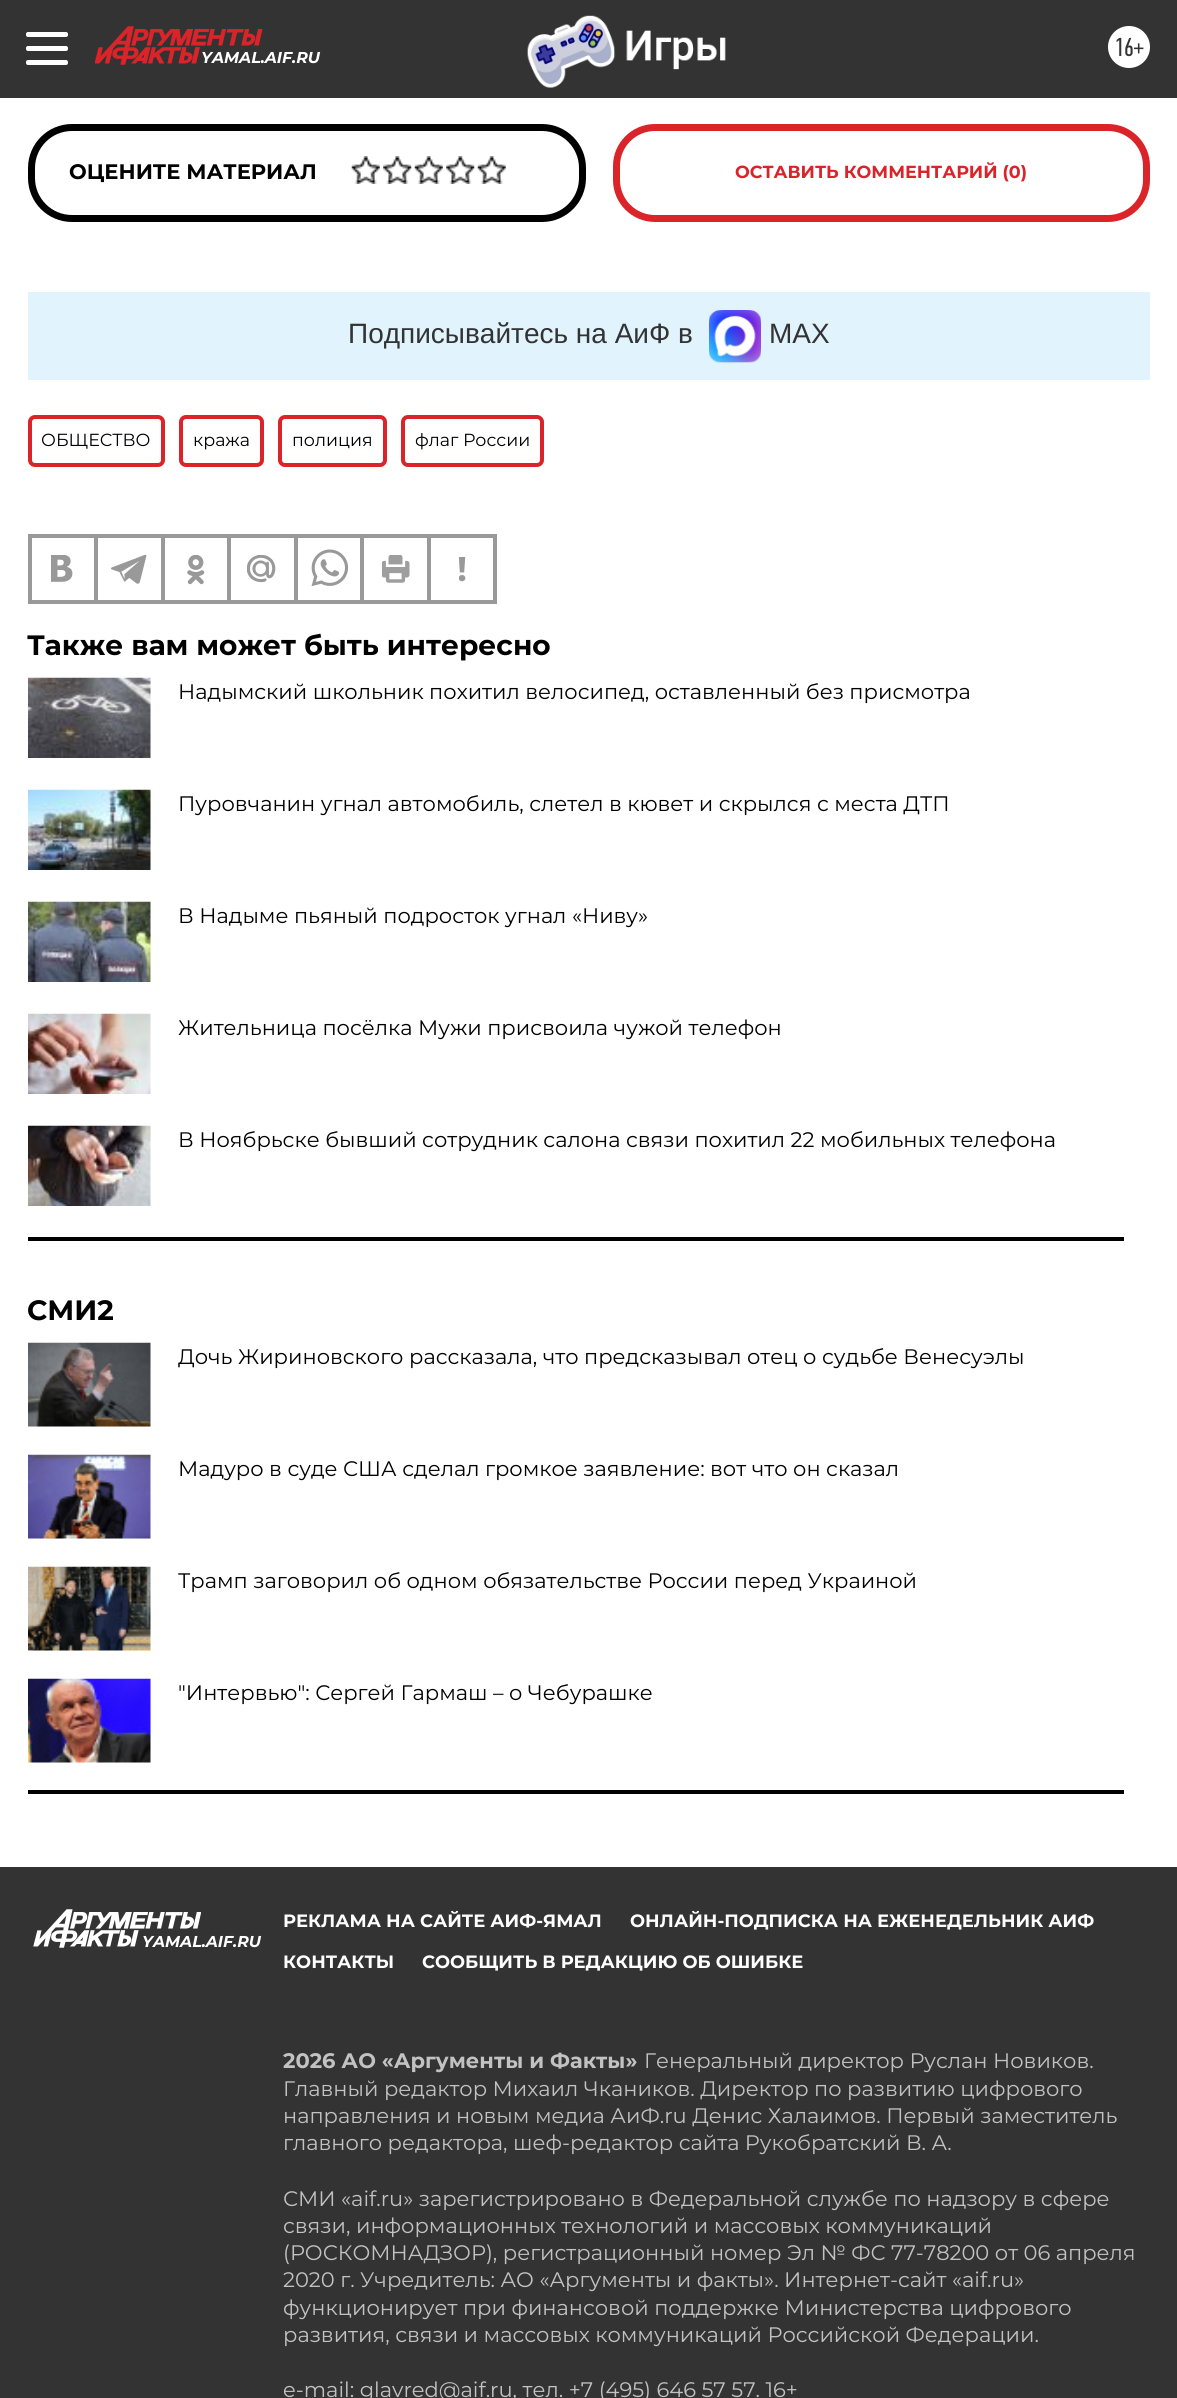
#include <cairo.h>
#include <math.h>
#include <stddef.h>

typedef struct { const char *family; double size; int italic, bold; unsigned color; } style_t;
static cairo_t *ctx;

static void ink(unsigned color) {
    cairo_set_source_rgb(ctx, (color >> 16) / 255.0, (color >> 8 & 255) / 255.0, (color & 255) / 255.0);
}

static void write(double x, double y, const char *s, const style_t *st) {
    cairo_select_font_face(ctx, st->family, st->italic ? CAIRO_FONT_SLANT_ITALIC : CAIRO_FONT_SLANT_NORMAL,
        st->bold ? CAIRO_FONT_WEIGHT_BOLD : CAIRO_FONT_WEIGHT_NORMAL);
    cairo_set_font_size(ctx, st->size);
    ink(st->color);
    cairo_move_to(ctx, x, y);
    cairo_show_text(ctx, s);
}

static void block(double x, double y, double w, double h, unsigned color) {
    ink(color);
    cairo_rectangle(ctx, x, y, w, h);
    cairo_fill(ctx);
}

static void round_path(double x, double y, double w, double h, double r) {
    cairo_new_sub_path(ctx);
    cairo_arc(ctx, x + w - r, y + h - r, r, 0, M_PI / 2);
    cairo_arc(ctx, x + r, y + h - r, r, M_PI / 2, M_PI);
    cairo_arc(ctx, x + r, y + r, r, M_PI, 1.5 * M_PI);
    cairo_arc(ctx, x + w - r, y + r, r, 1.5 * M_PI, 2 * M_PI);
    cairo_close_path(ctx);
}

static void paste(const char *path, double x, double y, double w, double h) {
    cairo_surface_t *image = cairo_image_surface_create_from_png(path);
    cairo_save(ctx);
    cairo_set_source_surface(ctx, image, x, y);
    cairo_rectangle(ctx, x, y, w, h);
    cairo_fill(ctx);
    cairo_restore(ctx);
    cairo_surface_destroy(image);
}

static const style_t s1 = {"Montserrat", 15.75, 1, 1, 0xffffff};
static const style_t s2 = {"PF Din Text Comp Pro", 26, 0, 0, 0x333333};
static const style_t s3 = {"Montserrat", 21, 0, 1, 0x000000};
static const style_t s4 = {"Montserrat", 17.5, 0, 1, 0xda2429};
static const style_t s5 = {"Liberation Sans", 28, 0, 0, 0x333333};
static const style_t s6 = {"Montserrat", 17.5, 0, 0, 0x000000};
static const style_t s7 = {"Montserrat", 28, 0, 1, 0x000000};
static const style_t s8 = {"Montserrat", 21, 0, 0, 0x000000};
static const style_t s9 = {"Montserrat", 17.85, 0, 1, 0xffffff};
static const style_t s10 = {"Montserrat", 21, 0, 1, 0xc2c2c2};
static const style_t s11 = {"Montserrat", 21, 0, 0, 0xc2c2c2};

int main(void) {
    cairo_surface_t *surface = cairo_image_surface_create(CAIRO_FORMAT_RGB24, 1177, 2398);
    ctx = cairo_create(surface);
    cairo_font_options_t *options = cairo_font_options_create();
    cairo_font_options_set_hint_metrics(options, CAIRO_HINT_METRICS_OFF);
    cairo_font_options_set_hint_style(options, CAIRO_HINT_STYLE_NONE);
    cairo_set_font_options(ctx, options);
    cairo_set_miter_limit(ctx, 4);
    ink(0xffffff);
    cairo_paint(ctx);
    block(0, 0, 1177, 98, 0x333333);
    ink(0xffffff);
    round_path(26, 32, 42, 5, 2);
    cairo_fill(ctx);
    round_path(26, 46, 42, 5, 2);
    cairo_fill(ctx);
    round_path(26, 60, 42, 5, 2);
    cairo_fill(ctx);
    paste("pic1.png", 95, 26, 168, 39);
    write(201, 63, "YAMAL.AIF.RU", &s1);
    paste("pic2.png", 527, 15, 199, 73);
    cairo_arc(ctx, 1129, 47, 21, 0, 2 * M_PI);
    cairo_fill(ctx);
    write(1114, 56, "16+", &s2);
    round_path(31.5, 127.5, 551, 91, 40.5);
    ink(0x000000);
    cairo_set_line_width(ctx, 7);
    cairo_stroke(ctx);
    write(69, 179, "ОЦЕНИТЕ МАТЕРИАЛ", &s3);
    paste("pic3.png", 351, 156, 29, 28);
    paste("pic4.png", 383, 156, 29, 28);
    paste("pic5.png", 414, 156, 29, 28);
    paste("pic4.png", 446, 156, 29, 28);
    paste("pic5.png", 477, 156, 29, 28);
    round_path(616.5, 127.5, 530, 91, 38.5);
    ink(0xda2429);
    cairo_stroke(ctx);
    write(735, 178, "ОСТАВИТЬ КОММЕНТАРИЙ (0)", &s4);
    block(28, 292, 1122, 88, 0xe1f3fc);
    write(348, 343, "Подписывайтесь на АиФ в", &s5);
    paste("pic6.png", 709, 310, 52, 53);
    write(769, 343, "MAX", &s5);
    round_path(30, 417, 133, 48, 5);
    ink(0xda2429);
    cairo_set_line_width(ctx, 4);
    cairo_stroke(ctx);
    write(41, 446, "ОБЩЕСТВО", &s6);
    round_path(181, 417, 81, 48, 5);
    ink(0xda2429);
    cairo_stroke(ctx);
    write(193, 446, "кража", &s6);
    round_path(280, 417, 105, 48, 5);
    ink(0xda2429);
    cairo_stroke(ctx);
    write(292, 446, "полиция", &s6);
    round_path(403, 417, 139, 48, 5);
    ink(0xda2429);
    cairo_stroke(ctx);
    write(415, 446, "флаг России", &s6);
    cairo_rectangle(ctx, 29, 535, 467, 68);
    ink(0x999999);
    cairo_set_line_width(ctx, 2);
    cairo_stroke(ctx);
    cairo_rectangle(ctx, 31, 537, 64, 64);
    cairo_stroke(ctx);
    paste("pic7.png", 51, 555, 22, 27);
    cairo_rectangle(ctx, 97, 537, 65, 64);
    cairo_stroke(ctx);
    paste("pic8.png", 111, 555, 36, 29);
    cairo_rectangle(ctx, 164, 537, 64, 64);
    cairo_stroke(ctx);
    paste("pic9.png", 187, 555, 18, 30);
    cairo_rectangle(ctx, 230, 537, 65, 64);
    cairo_stroke(ctx);
    paste("pic10.png", 247, 555, 29, 28);
    cairo_rectangle(ctx, 297, 537, 64, 64);
    cairo_stroke(ctx);
    paste("pic11.png", 311, 549, 38, 38);
    cairo_rectangle(ctx, 363, 537, 65, 64);
    cairo_stroke(ctx);
    paste("pic12.png", 382, 555, 28, 28);
    cairo_rectangle(ctx, 430, 537, 64, 64);
    cairo_stroke(ctx);
    paste("pic13.png", 459, 557, 7, 25);
    write(27, 655, "Также вам может быть интересно", &s7);
    block(28, 1237, 1096, 4, 0x000000);
    paste("pic14.png", 28, 677, 123, 81);
    write(178, 699, "Надымский школьник похитил велосипед, оставленный без присмотра", &s8);
    paste("pic15.png", 28, 789, 123, 81);
    write(178, 811, "Пуровчанин угнал автомобиль, слетел в кювет и скрылся с места ДТП", &s8);
    paste("pic16.png", 28, 901, 123, 81);
    write(178, 923, "В Надыме пьяный подросток угнал «Ниву»", &s8);
    paste("pic17.png", 28, 1013, 123, 81);
    write(178, 1035, "Жительница посёлка Мужи присвоила чужой телефон", &s8);
    paste("pic18.png", 28, 1125, 123, 81);
    write(178, 1147, "В Ноябрьске бывший сотрудник салона связи похитил 22 мобильных телефона", &s8);
    write(27, 1320, "СМИ2", &s7);
    block(28, 1790, 1096, 4, 0x000000);
    paste("pic19.png", 28, 1342, 123, 85);
    write(178, 1364, "Дочь Жириновского рассказала, что предсказывал отец о судьбе Венесуэлы", &s8);
    paste("pic20.png", 28, 1454, 123, 85);
    write(178, 1476, "Мадуро в суде США сделал громкое заявление: вот что он сказал", &s8);
    paste("pic21.png", 28, 1566, 123, 85);
    write(178, 1588, "Трамп заговорил об одном обязательстве России перед Украиной", &s8);
    paste("pic22.png", 28, 1678, 123, 85);
    write(178, 1700, "\"Интервью\": Сергей Гармаш – о Чебурашке", &s8);
    block(0, 1867, 1177, 531, 0x333333);
    paste("pic23.png", 33, 1909, 168, 39);
    write(142, 1947, "YAMAL.AIF.RU", &s1);
    write(283, 1927, "РЕКЛАМА НА САЙТЕ АИФ-ЯМАЛ", &s9);
    write(630, 1927, "ОНЛАЙН-ПОДПИСКА НА ЕЖЕНЕДЕЛЬНИК АИФ", &s9);
    write(283, 1968, "КОНТАКТЫ", &s9);
    write(422, 1968, "СООБЩИТЬ В РЕДАКЦИЮ ОБ ОШИБКЕ", &s9);
    write(283, 2068, "2026 АО «Аргументы и Факты»", &s10);
    write(644, 2068, "Генеральный директор Руслан Новиков.", &s11);
    write(283, 2096, "Главный редактор Михаил Чкаников. Директор по развитию цифрового", &s11);
    write(283, 2123, "направления и новым медиа АиФ.ru Денис Халаимов. Первый заместитель", &s11);
    write(283, 2150, "главного редактора, шеф-редактор сайта Рукобратский В. А.", &s11);
    write(283, 2206, "СМИ «aif.ru» зарегистрировано в Федеральной службе по надзору в сфере", &s11);
    write(283, 2233, "связи, информационных технологий и массовых коммуникаций", &s11);
    write(283, 2260, "(РОСКОМНАДЗОР), регистрационный номер Эл № ФС 77-78200 от 06 апреля", &s11);
    write(283, 2287, "2020 г. Учредитель: АО «Аргументы и факты». Интернет-сайт «aif.ru»", &s11);
    write(283, 2315, "функционирует при финансовой поддержке Министерства цифрового", &s11);
    write(283, 2342, "развития, связи и массовых коммуникаций Российской Федерации.", &s11);
    write(283, 2397, "e-mail: glavred@aif.ru, тел. +7 (495) 646 57 57. 16+", &s11);
    cairo_surface_write_to_png(surface, "screenshot.png");
    cairo_font_options_destroy(options);
    cairo_destroy(ctx);
    cairo_surface_destroy(surface);
    return 0;
}
